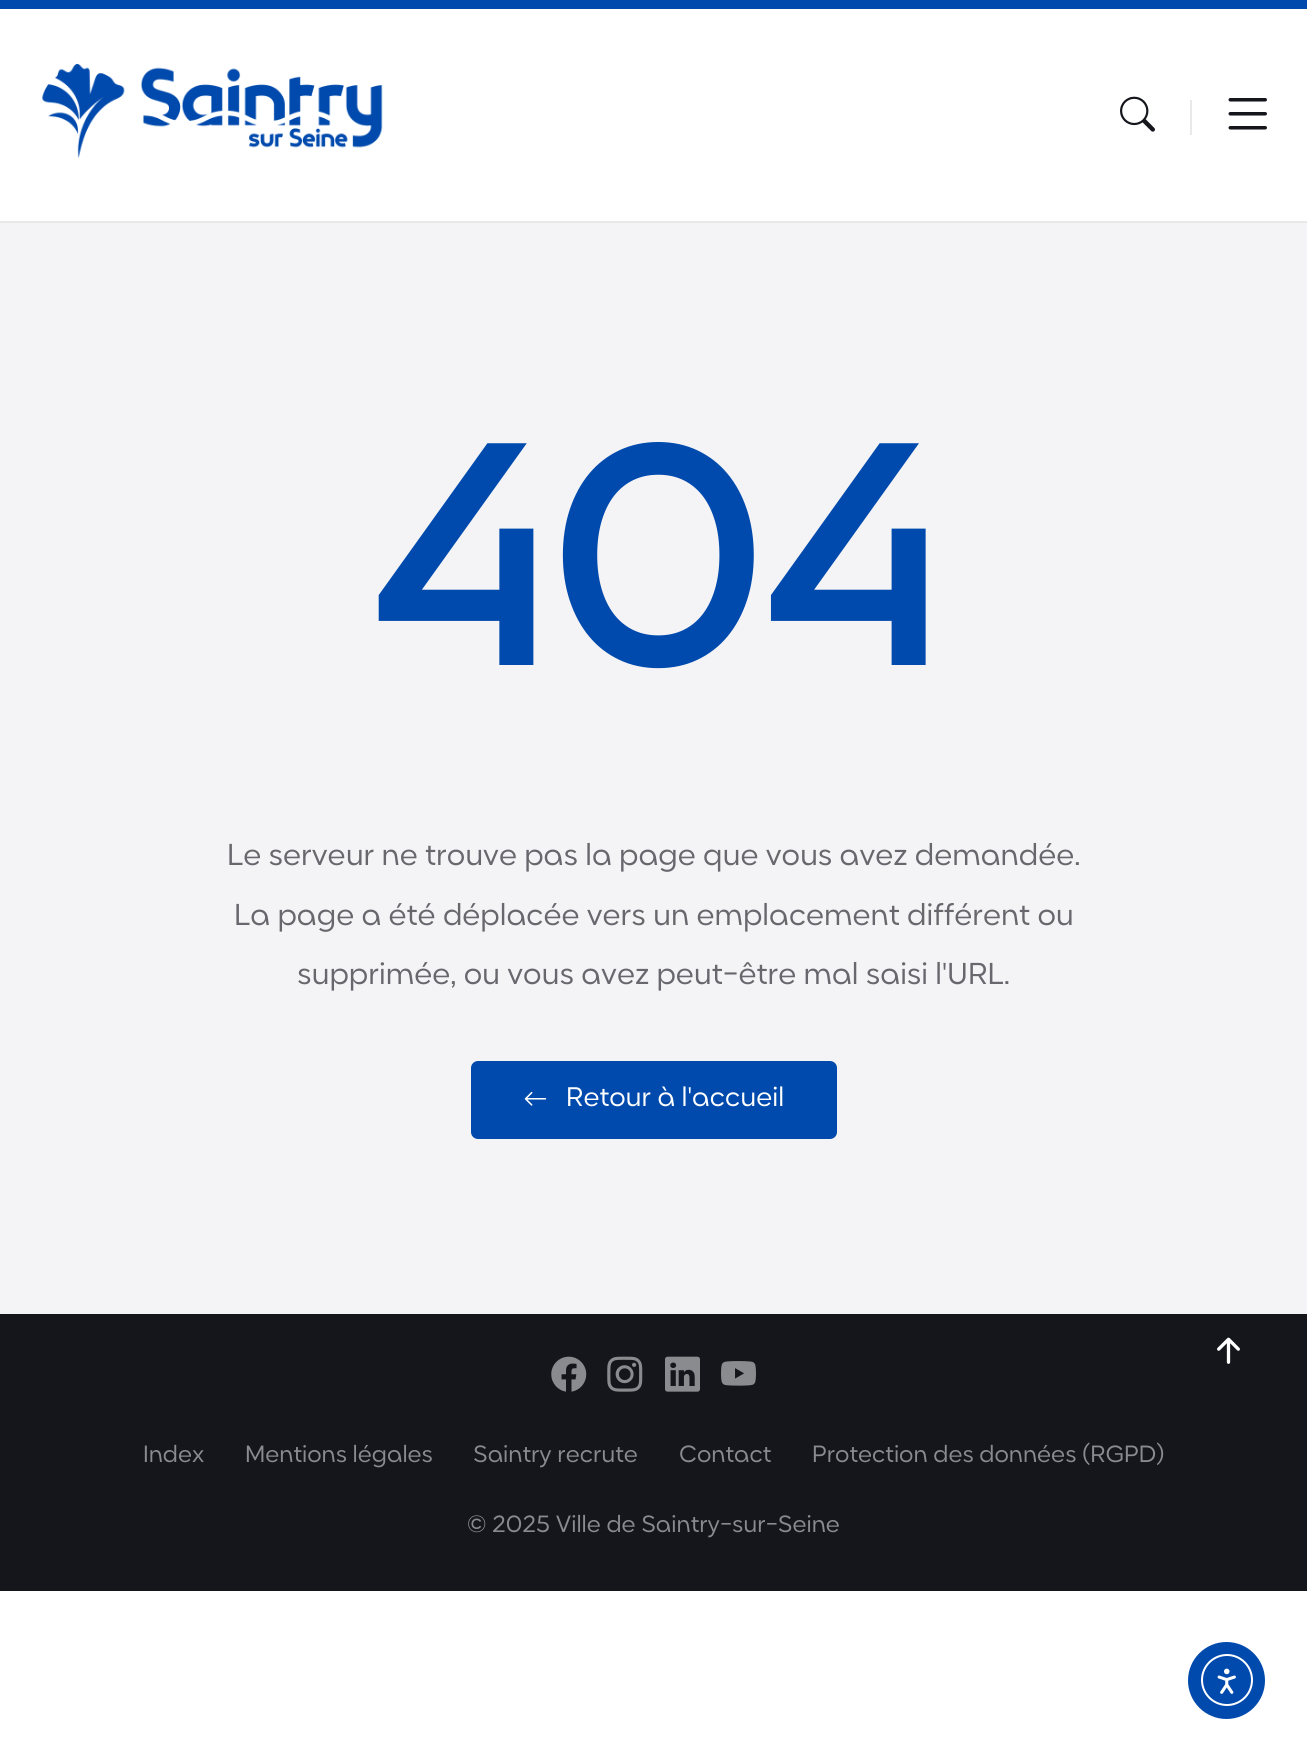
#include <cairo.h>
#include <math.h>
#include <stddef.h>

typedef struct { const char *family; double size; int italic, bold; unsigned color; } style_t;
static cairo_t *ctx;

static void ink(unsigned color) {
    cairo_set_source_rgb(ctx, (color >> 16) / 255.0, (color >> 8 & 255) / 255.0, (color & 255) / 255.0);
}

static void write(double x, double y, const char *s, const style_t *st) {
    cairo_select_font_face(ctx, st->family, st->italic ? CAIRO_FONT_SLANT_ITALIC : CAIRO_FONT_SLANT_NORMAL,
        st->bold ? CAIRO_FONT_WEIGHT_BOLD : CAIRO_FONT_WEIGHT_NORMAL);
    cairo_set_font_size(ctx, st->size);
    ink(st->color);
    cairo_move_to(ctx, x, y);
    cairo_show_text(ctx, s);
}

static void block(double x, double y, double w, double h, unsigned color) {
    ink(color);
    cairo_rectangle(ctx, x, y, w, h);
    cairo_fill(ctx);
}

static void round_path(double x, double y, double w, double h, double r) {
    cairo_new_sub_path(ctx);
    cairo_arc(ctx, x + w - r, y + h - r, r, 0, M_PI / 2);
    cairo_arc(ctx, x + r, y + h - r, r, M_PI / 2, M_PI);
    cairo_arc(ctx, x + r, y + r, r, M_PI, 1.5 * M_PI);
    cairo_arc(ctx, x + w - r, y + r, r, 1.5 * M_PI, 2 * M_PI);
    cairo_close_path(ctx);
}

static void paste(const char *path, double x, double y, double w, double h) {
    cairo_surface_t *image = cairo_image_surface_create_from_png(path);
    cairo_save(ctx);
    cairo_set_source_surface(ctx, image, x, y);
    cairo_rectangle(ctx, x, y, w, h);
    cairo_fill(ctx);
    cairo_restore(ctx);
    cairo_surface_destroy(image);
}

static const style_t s1 = {"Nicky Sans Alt", 315, 0, 1, 0x004aad};
static const style_t s2 = {"Nicky Sans Alt", 31.5, 0, 0, 0x68676d};
static const style_t s3 = {"Nicky Sans Alt", 28, 0, 0, 0xffffff};
static const style_t s4 = {"Nicky Sans Alt", 24.5, 0, 0, 0x8a8b8e};

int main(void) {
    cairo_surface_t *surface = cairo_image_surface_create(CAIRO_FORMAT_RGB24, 1307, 1760);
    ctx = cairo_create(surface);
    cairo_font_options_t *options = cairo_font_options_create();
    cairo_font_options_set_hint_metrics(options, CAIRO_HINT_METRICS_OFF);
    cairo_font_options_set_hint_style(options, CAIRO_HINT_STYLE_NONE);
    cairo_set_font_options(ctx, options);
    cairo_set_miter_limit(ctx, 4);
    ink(0xffffff);
    cairo_paint(ctx);
    block(0, 221, 1307, 2, 0xe9e9ea);
    block(0, 0, 1307, 9, 0x004aad);
    paste("pic1.png", 42, 63, 341, 96);
    paste("pic2.png", 1120, 96, 35, 36);
    block(1190, 100, 2, 35, 0xe9e9ea);
    paste("pic3.png", 1228, 98, 39, 32);
    block(0, 223, 1307, 1091, 0xf4f3f6);
    write(368, 665, "404", &s1);
    write(227, 865, "Le serveur ne trouve pas la page que vous avez demandée.", &s2);
    write(234, 925, "La page a été déplacée vers un emplacement différent ou", &s2);
    write(297, 984, "supprimée, ou vous avez peut-être mal saisi l'URL.", &s2);
    ink(0x004aad);
    round_path(471, 1061, 366, 78, 7);
    cairo_fill(ctx);
    paste("pic4.png", 524, 1091, 23, 15);
    write(566, 1106, "Retour à l'accueil", &s3);
    block(0, 1314, 1307, 277, 0x14161c);
    paste("pic5.png", 1217, 1337, 23, 27);
    paste("pic6.png", 551, 1356, 36, 36);
    paste("pic7.png", 607, 1356, 36, 36);
    paste("pic8.png", 665, 1356, 35, 36);
    paste("pic9.png", 721, 1361, 35, 25);
    write(143, 1462, "Index", &s4);
    write(245, 1462, "Mentions légales", &s4);
    write(473, 1462, "Saintry recrute", &s4);
    write(679, 1462, "Contact", &s4);
    write(812, 1462, "Protection des données (RGPD)", &s4);
    write(467, 1532, "© 2025 Ville de Saintry-sur-Seine", &s4);
    ink(0x004aad);
    cairo_new_path(ctx);
    cairo_arc(ctx, 1226.5, 1680.5, 38.5, 0, 2 * M_PI);
    cairo_fill(ctx);
    cairo_arc(ctx, 1227, 1680, 25, 0, 2 * M_PI);
    ink(0xffffff);
    cairo_stroke(ctx);
    paste("pic10.png", 1217, 1668, 19, 26);
    cairo_surface_write_to_png(surface, "screenshot.png");
    cairo_font_options_destroy(options);
    cairo_destroy(ctx);
    cairo_surface_destroy(surface);
    return 0;
}
